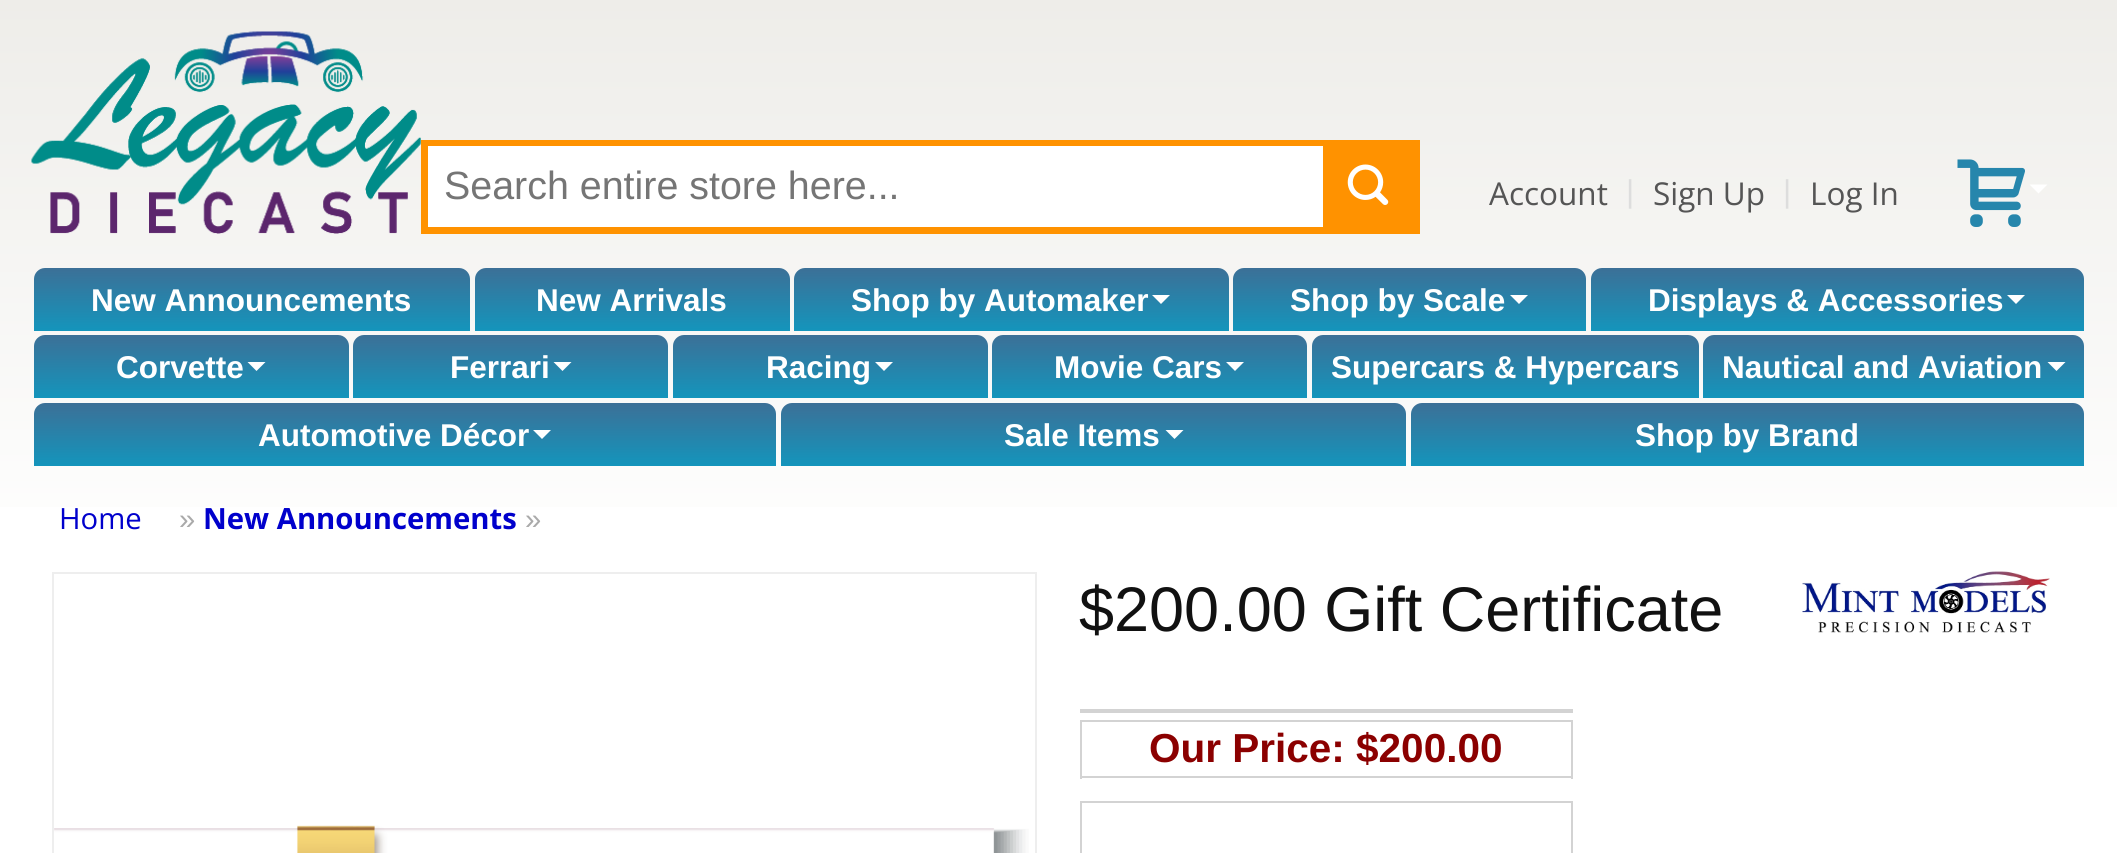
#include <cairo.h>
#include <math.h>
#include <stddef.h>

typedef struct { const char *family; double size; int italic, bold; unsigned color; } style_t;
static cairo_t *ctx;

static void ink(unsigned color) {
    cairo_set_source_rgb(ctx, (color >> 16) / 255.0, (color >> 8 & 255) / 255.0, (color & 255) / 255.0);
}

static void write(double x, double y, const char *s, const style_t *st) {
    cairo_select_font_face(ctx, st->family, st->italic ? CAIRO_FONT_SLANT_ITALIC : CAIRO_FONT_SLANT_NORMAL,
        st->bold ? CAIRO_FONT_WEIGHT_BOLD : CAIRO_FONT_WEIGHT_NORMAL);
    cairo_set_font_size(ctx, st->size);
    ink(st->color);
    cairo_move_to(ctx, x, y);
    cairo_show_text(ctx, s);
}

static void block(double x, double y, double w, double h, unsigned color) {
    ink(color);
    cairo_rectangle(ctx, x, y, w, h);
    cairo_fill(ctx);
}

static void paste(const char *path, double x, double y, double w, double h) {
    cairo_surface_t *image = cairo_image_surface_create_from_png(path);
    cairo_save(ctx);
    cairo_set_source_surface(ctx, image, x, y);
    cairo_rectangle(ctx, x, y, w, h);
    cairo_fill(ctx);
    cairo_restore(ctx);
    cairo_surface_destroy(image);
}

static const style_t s1 = {"Liberation Sans", 39.4, 0, 0, 0x757575};
static const style_t s2 = {"Open Sans", 31.5, 0, 0, 0x555555};
static const style_t s3 = {"Liberation Sans", 31.5, 0, 0, 0xdddddd};
static const style_t s4 = {"Liberation Sans", 31.5, 0, 1, 0xffffff};
static const style_t s5 = {"Open Sans", 29.25, 0, 0, 0x0000cc};
static const style_t s6 = {"Liberation Sans", 29.25, 0, 0, 0xaaaaaa};
static const style_t s7 = {"Open Sans", 29.25, 0, 1, 0x0000cc};
static const style_t s8 = {"Liberation Sans", 63, 0, 0, 0x111111};
static const style_t s9 = {"Liberation Sans", 40.5, 0, 1, 0x8b0000};

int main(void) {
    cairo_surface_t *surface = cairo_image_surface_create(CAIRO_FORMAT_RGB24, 2117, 853);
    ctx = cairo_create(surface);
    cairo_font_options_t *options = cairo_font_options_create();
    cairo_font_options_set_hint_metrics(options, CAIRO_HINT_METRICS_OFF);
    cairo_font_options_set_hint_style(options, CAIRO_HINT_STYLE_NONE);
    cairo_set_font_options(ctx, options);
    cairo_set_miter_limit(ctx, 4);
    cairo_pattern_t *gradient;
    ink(0xffffff);
    cairo_paint(ctx);
    gradient = cairo_pattern_create_linear(1059, 0, 1059, 572);
    cairo_pattern_add_color_stop_rgba(gradient, 0, 0.933, 0.929, 0.914, 1);
    cairo_pattern_add_color_stop_rgba(gradient, 1, 1, 1, 1, 1);
    cairo_set_source(ctx, gradient);
    cairo_pattern_destroy(gradient);
    cairo_rectangle(ctx, 0, 0, 2117, 507);
    cairo_fill(ctx);
    paste("pic1.png", 31, 31, 390, 203);
    cairo_rectangle(ctx, 424.5, 143.5, 992, 87);
    ink(0xff9200);
    cairo_set_line_width(ctx, 7);
    cairo_stroke(ctx);
    block(428, 146, 895, 81, 0xffffff);
    write(444, 199, "Search entire store here...", &s1);
    block(1323, 147, 90, 80, 0xff9200);
    paste("pic2.png", 1347, 164, 42, 41);
    write(1489, 205, "Account", &s2);
    write(1626, 202, "|", &s3);
    write(1653, 205, "Sign Up", &s2);
    write(1783, 202, "|", &s3);
    write(1810, 205, "Log In", &s2);
    paste("pic3.png", 1957, 159, 68, 68);
    ink(0xffffff);
    cairo_new_path(ctx);
    cairo_move_to(ctx, 2029.5, 184.5);
    cairo_line_to(ctx, 2047.5, 184.5);
    cairo_line_to(ctx, 2038.5, 193.5);
    cairo_close_path(ctx);
    cairo_fill(ctx);
    gradient = cairo_pattern_create_linear(252, 268, 252, 331);
    cairo_pattern_add_color_stop_rgba(gradient, 0, 0.235, 0.439, 0.592, 1);
    cairo_pattern_add_color_stop_rgba(gradient, 1, 0.078, 0.584, 0.737, 1);
    cairo_set_source(ctx, gradient);
    cairo_pattern_destroy(gradient);
    cairo_new_path(ctx);
    cairo_move_to(ctx, 45, 268);
    cairo_line_to(ctx, 459, 268);
    cairo_curve_to(ctx, 465, 268, 470, 273, 470, 279);
    cairo_line_to(ctx, 470, 331);
    cairo_line_to(ctx, 34, 331);
    cairo_line_to(ctx, 34, 279);
    cairo_curve_to(ctx, 34, 273, 39, 268, 45, 268);
    cairo_close_path(ctx);
    cairo_fill(ctx);
    write(91, 311, "New Announcements", &s4);
    gradient = cairo_pattern_create_linear(632, 268, 632, 331);
    cairo_pattern_add_color_stop_rgba(gradient, 0, 0.235, 0.439, 0.592, 1);
    cairo_pattern_add_color_stop_rgba(gradient, 1, 0.078, 0.584, 0.737, 1);
    cairo_set_source(ctx, gradient);
    cairo_pattern_destroy(gradient);
    cairo_new_path(ctx);
    cairo_move_to(ctx, 486, 268);
    cairo_line_to(ctx, 779, 268);
    cairo_curve_to(ctx, 785, 268, 790, 273, 790, 279);
    cairo_line_to(ctx, 790, 331);
    cairo_line_to(ctx, 475, 331);
    cairo_line_to(ctx, 475, 279);
    cairo_curve_to(ctx, 475, 273, 480, 268, 486, 268);
    cairo_close_path(ctx);
    cairo_fill(ctx);
    write(536, 311, "New Arrivals", &s4);
    gradient = cairo_pattern_create_linear(1011, 268, 1011, 331);
    cairo_pattern_add_color_stop_rgba(gradient, 0, 0.235, 0.439, 0.592, 1);
    cairo_pattern_add_color_stop_rgba(gradient, 1, 0.078, 0.584, 0.737, 1);
    cairo_set_source(ctx, gradient);
    cairo_pattern_destroy(gradient);
    cairo_new_path(ctx);
    cairo_move_to(ctx, 805, 268);
    cairo_line_to(ctx, 1218, 268);
    cairo_curve_to(ctx, 1224, 268, 1229, 273, 1229, 279);
    cairo_line_to(ctx, 1229, 331);
    cairo_line_to(ctx, 794, 331);
    cairo_line_to(ctx, 794, 279);
    cairo_curve_to(ctx, 794, 273, 799, 268, 805, 268);
    cairo_close_path(ctx);
    cairo_fill(ctx);
    write(851, 311, "Shop by Automaker", &s4);
    cairo_new_path(ctx);
    cairo_move_to(ctx, 1152, 295);
    cairo_line_to(ctx, 1170, 295);
    cairo_line_to(ctx, 1161, 304);
    cairo_close_path(ctx);
    cairo_fill(ctx);
    gradient = cairo_pattern_create_linear(1410, 268, 1410, 331);
    cairo_pattern_add_color_stop_rgba(gradient, 0, 0.235, 0.439, 0.592, 1);
    cairo_pattern_add_color_stop_rgba(gradient, 1, 0.078, 0.584, 0.737, 1);
    cairo_set_source(ctx, gradient);
    cairo_pattern_destroy(gradient);
    cairo_new_path(ctx);
    cairo_move_to(ctx, 1244, 268);
    cairo_line_to(ctx, 1575, 268);
    cairo_curve_to(ctx, 1581, 268, 1586, 273, 1586, 279);
    cairo_line_to(ctx, 1586, 331);
    cairo_line_to(ctx, 1233, 331);
    cairo_line_to(ctx, 1233, 279);
    cairo_curve_to(ctx, 1233, 273, 1238, 268, 1244, 268);
    cairo_close_path(ctx);
    cairo_fill(ctx);
    write(1290, 311, "Shop by Scale", &s4);
    cairo_new_path(ctx);
    cairo_move_to(ctx, 1510, 295);
    cairo_line_to(ctx, 1528, 295);
    cairo_line_to(ctx, 1519, 304);
    cairo_close_path(ctx);
    cairo_fill(ctx);
    gradient = cairo_pattern_create_linear(1837, 268, 1837, 331);
    cairo_pattern_add_color_stop_rgba(gradient, 0, 0.235, 0.439, 0.592, 1);
    cairo_pattern_add_color_stop_rgba(gradient, 1, 0.078, 0.584, 0.737, 1);
    cairo_set_source(ctx, gradient);
    cairo_pattern_destroy(gradient);
    cairo_new_path(ctx);
    cairo_move_to(ctx, 1602, 268);
    cairo_line_to(ctx, 2073, 268);
    cairo_curve_to(ctx, 2079, 268, 2084, 273, 2084, 279);
    cairo_line_to(ctx, 2084, 331);
    cairo_line_to(ctx, 1591, 331);
    cairo_line_to(ctx, 1591, 279);
    cairo_curve_to(ctx, 1591, 273, 1596, 268, 1602, 268);
    cairo_close_path(ctx);
    cairo_fill(ctx);
    write(1648, 311, "Displays & Accessories", &s4);
    cairo_new_path(ctx);
    cairo_move_to(ctx, 2007, 295);
    cairo_line_to(ctx, 2025, 295);
    cairo_line_to(ctx, 2016, 304);
    cairo_close_path(ctx);
    cairo_fill(ctx);
    gradient = cairo_pattern_create_linear(191, 335, 191, 398);
    cairo_pattern_add_color_stop_rgba(gradient, 0, 0.235, 0.439, 0.592, 1);
    cairo_pattern_add_color_stop_rgba(gradient, 1, 0.078, 0.584, 0.737, 1);
    cairo_set_source(ctx, gradient);
    cairo_pattern_destroy(gradient);
    cairo_new_path(ctx);
    cairo_move_to(ctx, 45, 335);
    cairo_line_to(ctx, 338, 335);
    cairo_curve_to(ctx, 344, 335, 349, 340, 349, 346);
    cairo_line_to(ctx, 349, 398);
    cairo_line_to(ctx, 34, 398);
    cairo_line_to(ctx, 34, 346);
    cairo_curve_to(ctx, 34, 340, 39, 335, 45, 335);
    cairo_close_path(ctx);
    cairo_fill(ctx);
    write(116, 378, "Corvette", &s4);
    cairo_new_path(ctx);
    cairo_move_to(ctx, 247.5, 362);
    cairo_line_to(ctx, 265.5, 362);
    cairo_line_to(ctx, 256.5, 371);
    cairo_close_path(ctx);
    cairo_fill(ctx);
    gradient = cairo_pattern_create_linear(511, 335, 511, 398);
    cairo_pattern_add_color_stop_rgba(gradient, 0, 0.235, 0.439, 0.592, 1);
    cairo_pattern_add_color_stop_rgba(gradient, 1, 0.078, 0.584, 0.737, 1);
    cairo_set_source(ctx, gradient);
    cairo_pattern_destroy(gradient);
    cairo_new_path(ctx);
    cairo_move_to(ctx, 364, 335);
    cairo_line_to(ctx, 657, 335);
    cairo_curve_to(ctx, 663, 335, 668, 340, 668, 346);
    cairo_line_to(ctx, 668, 398);
    cairo_line_to(ctx, 353, 398);
    cairo_line_to(ctx, 353, 346);
    cairo_curve_to(ctx, 353, 340, 358, 335, 364, 335);
    cairo_close_path(ctx);
    cairo_fill(ctx);
    write(450, 378, "Ferrari", &s4);
    cairo_new_path(ctx);
    cairo_move_to(ctx, 553.5, 362);
    cairo_line_to(ctx, 571.5, 362);
    cairo_line_to(ctx, 562.5, 371);
    cairo_close_path(ctx);
    cairo_fill(ctx);
    gradient = cairo_pattern_create_linear(830, 335, 830, 398);
    cairo_pattern_add_color_stop_rgba(gradient, 0, 0.235, 0.439, 0.592, 1);
    cairo_pattern_add_color_stop_rgba(gradient, 1, 0.078, 0.584, 0.737, 1);
    cairo_set_source(ctx, gradient);
    cairo_pattern_destroy(gradient);
    cairo_new_path(ctx);
    cairo_move_to(ctx, 684, 335);
    cairo_line_to(ctx, 977, 335);
    cairo_curve_to(ctx, 983, 335, 988, 340, 988, 346);
    cairo_line_to(ctx, 988, 398);
    cairo_line_to(ctx, 673, 398);
    cairo_line_to(ctx, 673, 346);
    cairo_curve_to(ctx, 673, 340, 678, 335, 684, 335);
    cairo_close_path(ctx);
    cairo_fill(ctx);
    write(766, 378, "Racing", &s4);
    cairo_new_path(ctx);
    cairo_move_to(ctx, 875, 362);
    cairo_line_to(ctx, 893, 362);
    cairo_line_to(ctx, 884, 371);
    cairo_close_path(ctx);
    cairo_fill(ctx);
    gradient = cairo_pattern_create_linear(1150, 335, 1150, 398);
    cairo_pattern_add_color_stop_rgba(gradient, 0, 0.235, 0.439, 0.592, 1);
    cairo_pattern_add_color_stop_rgba(gradient, 1, 0.078, 0.584, 0.737, 1);
    cairo_set_source(ctx, gradient);
    cairo_pattern_destroy(gradient);
    cairo_new_path(ctx);
    cairo_move_to(ctx, 1003, 335);
    cairo_line_to(ctx, 1296, 335);
    cairo_curve_to(ctx, 1302, 335, 1307, 340, 1307, 346);
    cairo_line_to(ctx, 1307, 398);
    cairo_line_to(ctx, 992, 398);
    cairo_line_to(ctx, 992, 346);
    cairo_curve_to(ctx, 992, 340, 997, 335, 1003, 335);
    cairo_close_path(ctx);
    cairo_fill(ctx);
    write(1054, 378, "Movie Cars", &s4);
    cairo_new_path(ctx);
    cairo_move_to(ctx, 1226, 362);
    cairo_line_to(ctx, 1244, 362);
    cairo_line_to(ctx, 1235, 371);
    cairo_close_path(ctx);
    cairo_fill(ctx);
    gradient = cairo_pattern_create_linear(1505, 335, 1505, 398);
    cairo_pattern_add_color_stop_rgba(gradient, 0, 0.235, 0.439, 0.592, 1);
    cairo_pattern_add_color_stop_rgba(gradient, 1, 0.078, 0.584, 0.737, 1);
    cairo_set_source(ctx, gradient);
    cairo_pattern_destroy(gradient);
    cairo_new_path(ctx);
    cairo_move_to(ctx, 1323, 335);
    cairo_line_to(ctx, 1688, 335);
    cairo_curve_to(ctx, 1694, 335, 1699, 340, 1699, 346);
    cairo_line_to(ctx, 1699, 398);
    cairo_line_to(ctx, 1312, 398);
    cairo_line_to(ctx, 1312, 346);
    cairo_curve_to(ctx, 1312, 340, 1317, 335, 1323, 335);
    cairo_close_path(ctx);
    cairo_fill(ctx);
    write(1331, 378, "Supercars & Hypercars", &s4);
    gradient = cairo_pattern_create_linear(1893, 335, 1893, 398);
    cairo_pattern_add_color_stop_rgba(gradient, 0, 0.235, 0.439, 0.592, 1);
    cairo_pattern_add_color_stop_rgba(gradient, 1, 0.078, 0.584, 0.737, 1);
    cairo_set_source(ctx, gradient);
    cairo_pattern_destroy(gradient);
    cairo_new_path(ctx);
    cairo_move_to(ctx, 1714, 335);
    cairo_line_to(ctx, 2073, 335);
    cairo_curve_to(ctx, 2079, 335, 2084, 340, 2084, 346);
    cairo_line_to(ctx, 2084, 398);
    cairo_line_to(ctx, 1703, 398);
    cairo_line_to(ctx, 1703, 346);
    cairo_curve_to(ctx, 1703, 340, 1708, 335, 1714, 335);
    cairo_close_path(ctx);
    cairo_fill(ctx);
    write(1722, 378, "Nautical and Aviation", &s4);
    cairo_new_path(ctx);
    cairo_move_to(ctx, 2047.5, 362);
    cairo_line_to(ctx, 2065.5, 362);
    cairo_line_to(ctx, 2056.5, 371);
    cairo_close_path(ctx);
    cairo_fill(ctx);
    gradient = cairo_pattern_create_linear(405, 403, 405, 466);
    cairo_pattern_add_color_stop_rgba(gradient, 0, 0.235, 0.439, 0.592, 1);
    cairo_pattern_add_color_stop_rgba(gradient, 1, 0.078, 0.584, 0.737, 1);
    cairo_set_source(ctx, gradient);
    cairo_pattern_destroy(gradient);
    cairo_new_path(ctx);
    cairo_move_to(ctx, 45, 403);
    cairo_line_to(ctx, 765, 403);
    cairo_curve_to(ctx, 771, 403, 776, 408, 776, 414);
    cairo_line_to(ctx, 776, 466);
    cairo_line_to(ctx, 34, 466);
    cairo_line_to(ctx, 34, 414);
    cairo_curve_to(ctx, 34, 408, 39, 403, 45, 403);
    cairo_close_path(ctx);
    cairo_fill(ctx);
    write(258, 446, "Automotive Décor", &s4);
    cairo_new_path(ctx);
    cairo_move_to(ctx, 533, 430);
    cairo_line_to(ctx, 551, 430);
    cairo_line_to(ctx, 542, 439);
    cairo_close_path(ctx);
    cairo_fill(ctx);
    gradient = cairo_pattern_create_linear(1094, 403, 1094, 466);
    cairo_pattern_add_color_stop_rgba(gradient, 0, 0.235, 0.439, 0.592, 1);
    cairo_pattern_add_color_stop_rgba(gradient, 1, 0.078, 0.584, 0.737, 1);
    cairo_set_source(ctx, gradient);
    cairo_pattern_destroy(gradient);
    cairo_new_path(ctx);
    cairo_move_to(ctx, 792, 403);
    cairo_line_to(ctx, 1395, 403);
    cairo_curve_to(ctx, 1401, 403, 1406, 408, 1406, 414);
    cairo_line_to(ctx, 1406, 466);
    cairo_line_to(ctx, 781, 466);
    cairo_line_to(ctx, 781, 414);
    cairo_curve_to(ctx, 781, 408, 786, 403, 792, 403);
    cairo_close_path(ctx);
    cairo_fill(ctx);
    write(1004, 446, "Sale Items", &s4);
    cairo_new_path(ctx);
    cairo_move_to(ctx, 1165.5, 430);
    cairo_line_to(ctx, 1183.5, 430);
    cairo_line_to(ctx, 1174.5, 439);
    cairo_close_path(ctx);
    cairo_fill(ctx);
    gradient = cairo_pattern_create_linear(1747, 403, 1747, 466);
    cairo_pattern_add_color_stop_rgba(gradient, 0, 0.235, 0.439, 0.592, 1);
    cairo_pattern_add_color_stop_rgba(gradient, 1, 0.078, 0.584, 0.737, 1);
    cairo_set_source(ctx, gradient);
    cairo_pattern_destroy(gradient);
    cairo_new_path(ctx);
    cairo_move_to(ctx, 1422, 403);
    cairo_line_to(ctx, 2073, 403);
    cairo_curve_to(ctx, 2079, 403, 2084, 408, 2084, 414);
    cairo_line_to(ctx, 2084, 466);
    cairo_line_to(ctx, 1411, 466);
    cairo_line_to(ctx, 1411, 414);
    cairo_curve_to(ctx, 1411, 408, 1416, 403, 1422, 403);
    cairo_close_path(ctx);
    cairo_fill(ctx);
    write(1635, 446, "Shop by Brand", &s4);
    write(59, 529, "Home", &s5);
    write(179, 529, "»", &s6);
    write(203, 529, "New Announcements", &s7);
    write(525, 529, "»", &s6);
    paste("pic4.png", 54, 825, 975, 28);
    cairo_rectangle(ctx, 53, 573, 983, 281);
    ink(0xeeeeee);
    cairo_set_line_width(ctx, 2);
    cairo_stroke(ctx);
    write(1079, 631, "$200.00 Gift Certificate", &s8);
    paste("pic5.png", 1802, 571, 248, 62);
    block(1080, 709, 493, 4, 0xd3d3d3);
    block(1080, 720, 493, 2, 0xd3d3d3);
    block(1571, 720, 2, 59, 0xd3d3d3);
    block(1080, 776, 493, 2, 0xd3d3d3);
    block(1080, 720, 2, 59, 0xd3d3d3);
    write(1149, 762, "Our Price: $200.00", &s9);
    cairo_rectangle(ctx, 1081, 802, 491, 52);
    ink(0xd3d3d3);
    cairo_stroke(ctx);
    cairo_surface_write_to_png(surface, "screenshot.png");
    cairo_font_options_destroy(options);
    cairo_destroy(ctx);
    cairo_surface_destroy(surface);
    return 0;
}
